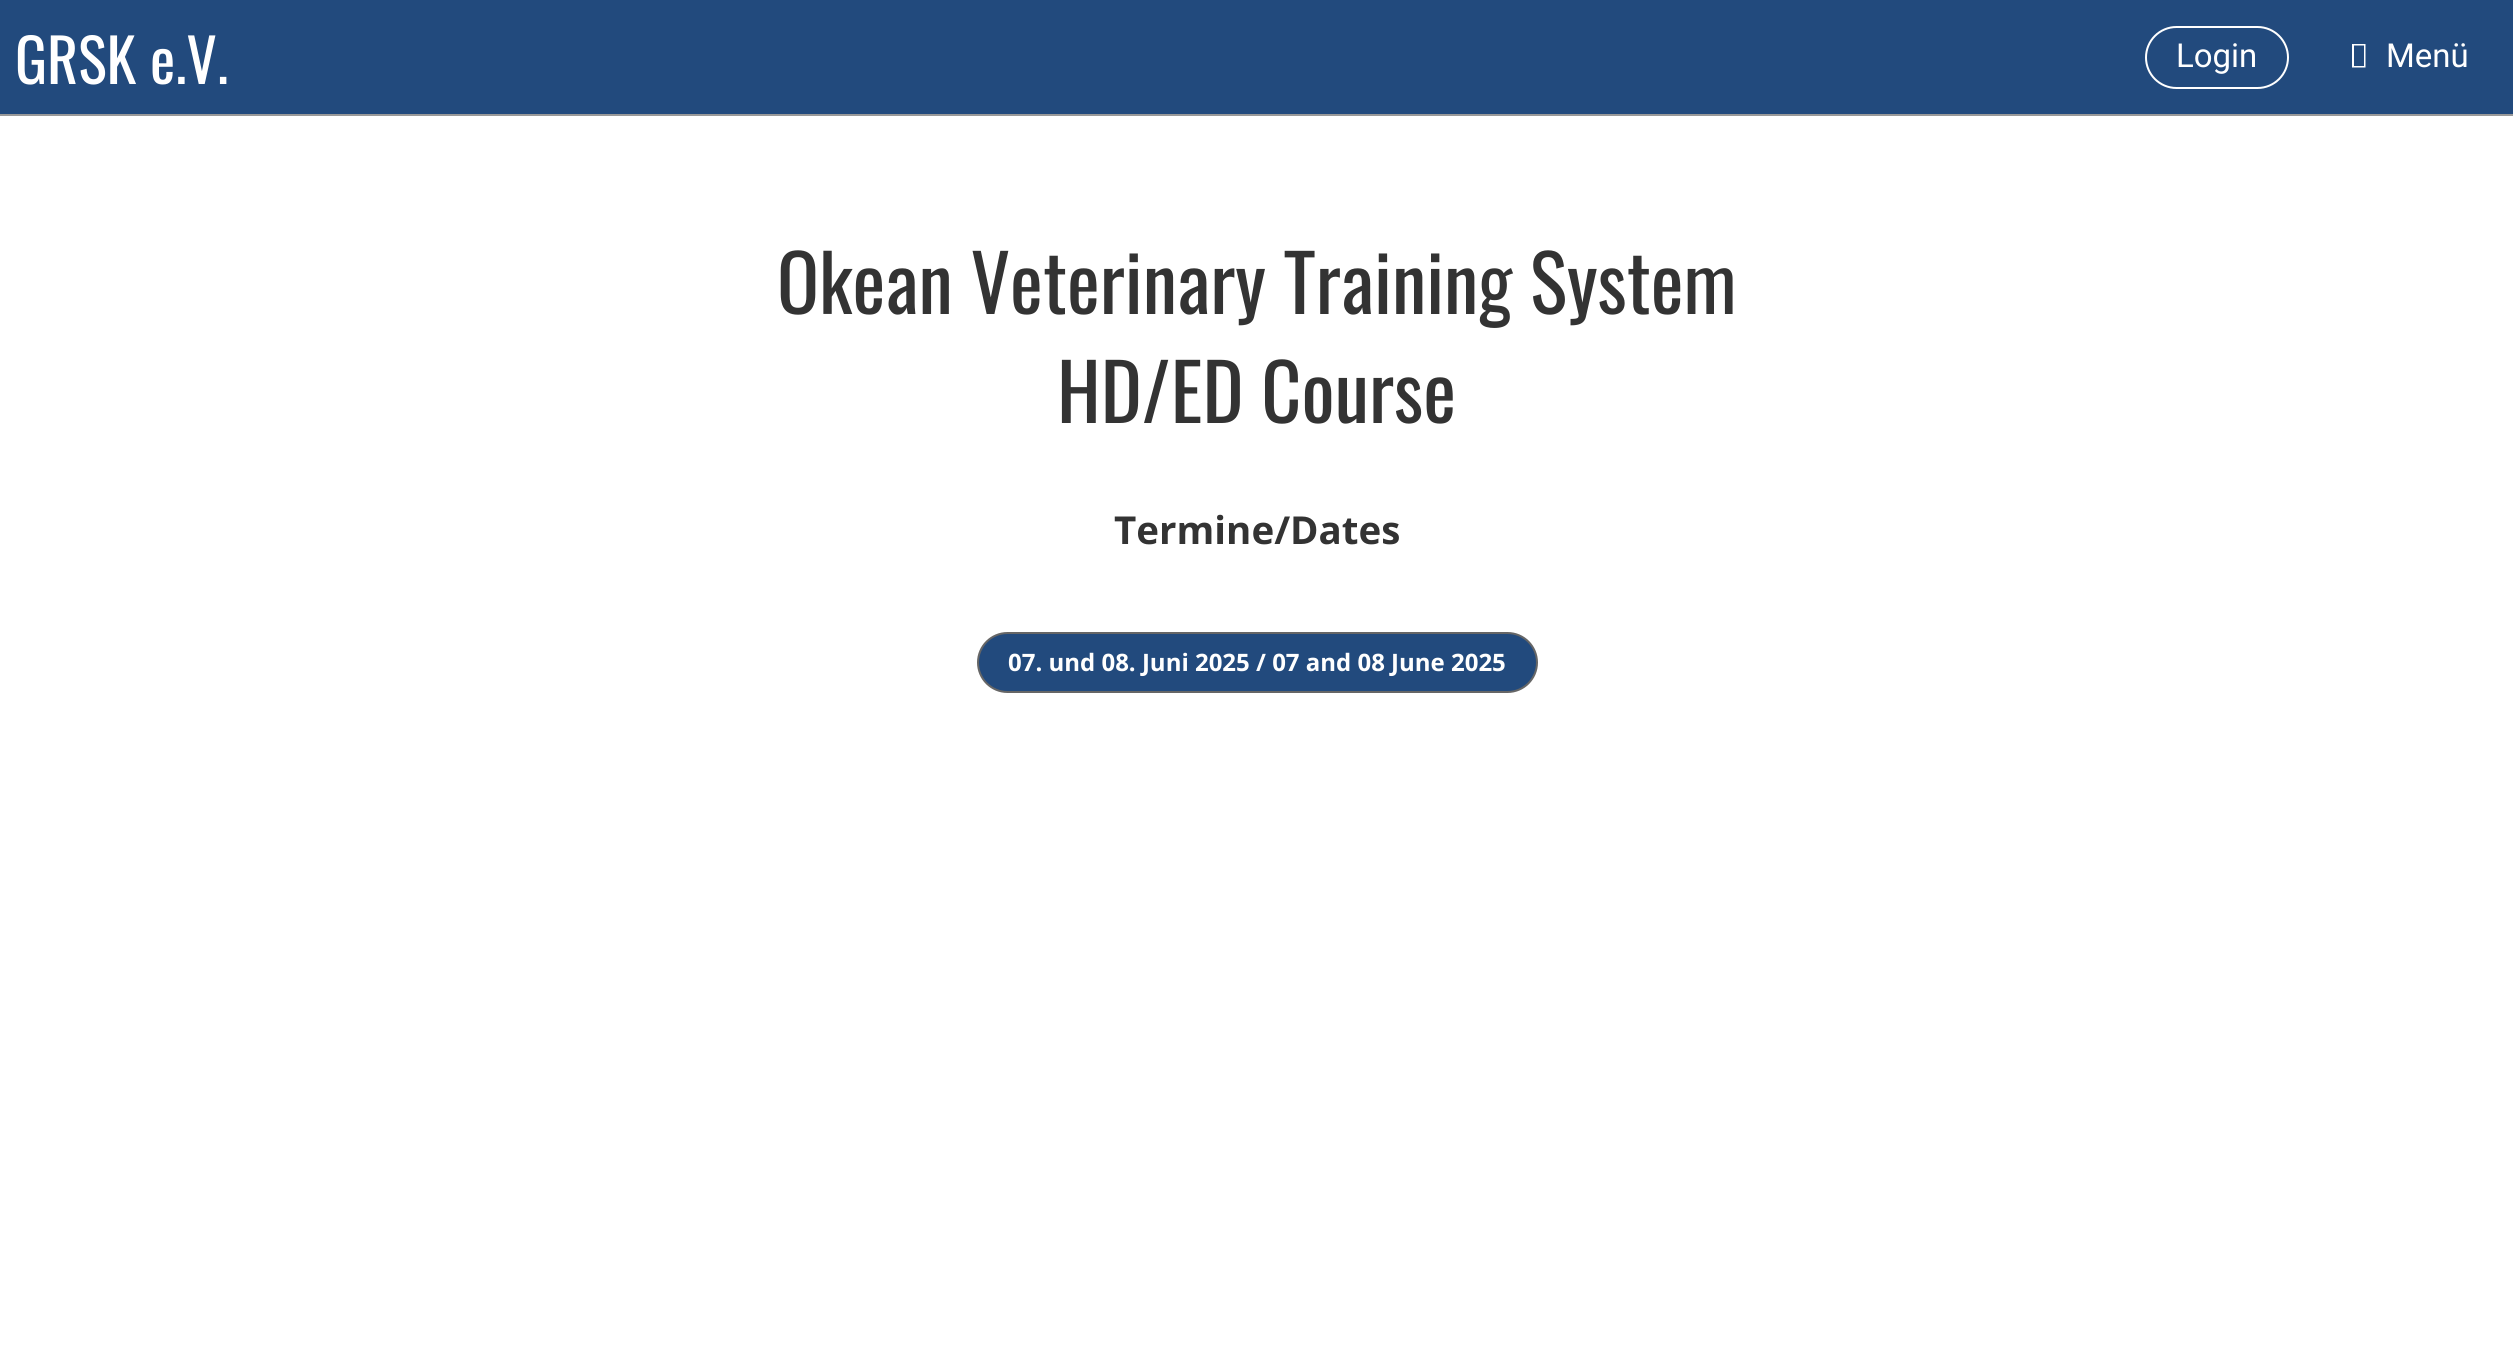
#include <cairo.h>
#include <math.h>
#include <stddef.h>

typedef struct { const char *family; double size; int italic, bold; unsigned color; } style_t;
static cairo_t *ctx;

static void ink(unsigned color) {
    cairo_set_source_rgb(ctx, (color >> 16) / 255.0, (color >> 8 & 255) / 255.0, (color & 255) / 255.0);
}

static void write(double x, double y, const char *s, const style_t *st) {
    cairo_select_font_face(ctx, st->family, st->italic ? CAIRO_FONT_SLANT_ITALIC : CAIRO_FONT_SLANT_NORMAL,
        st->bold ? CAIRO_FONT_WEIGHT_BOLD : CAIRO_FONT_WEIGHT_NORMAL);
    cairo_set_font_size(ctx, st->size);
    ink(st->color);
    cairo_move_to(ctx, x, y);
    cairo_show_text(ctx, s);
}

static void block(double x, double y, double w, double h, unsigned color) {
    ink(color);
    cairo_rectangle(ctx, x, y, w, h);
    cairo_fill(ctx);
}

static void round_path(double x, double y, double w, double h, double r) {
    cairo_new_sub_path(ctx);
    cairo_arc(ctx, x + w - r, y + h - r, r, 0, M_PI / 2);
    cairo_arc(ctx, x + r, y + h - r, r, M_PI / 2, M_PI);
    cairo_arc(ctx, x + r, y + r, r, M_PI, 1.5 * M_PI);
    cairo_arc(ctx, x + w - r, y + r, r, 1.5 * M_PI, 2 * M_PI);
    cairo_close_path(ctx);
}

static const style_t s1 = {"Oswald", 60, 0, 0, 0xffffff};
static const style_t s2 = {"Roboto", 33, 0, 0, 0xffffff};
static const style_t s3 = {"Oswald", 78, 0, 0, 0x333333};
static const style_t s4 = {"Open Sans", 38.5, 0, 1, 0x333333};
static const style_t s5 = {"Open Sans", 24, 0, 1, 0xffffff};

int main(void) {
    cairo_surface_t *surface = cairo_image_surface_create(CAIRO_FORMAT_RGB24, 2513, 1367);
    ctx = cairo_create(surface);
    cairo_font_options_t *options = cairo_font_options_create();
    cairo_font_options_set_hint_metrics(options, CAIRO_HINT_METRICS_OFF);
    cairo_font_options_set_hint_style(options, CAIRO_HINT_STYLE_NONE);
    cairo_set_font_options(ctx, options);
    cairo_set_miter_limit(ctx, 4);
    ink(0xffffff);
    cairo_paint(ctx);
    block(0, 0, 2513, 114, 0x224a7d);
    block(0, 114, 2513, 2, 0x999999);
    write(15, 84, "GRSK e.V.", &s1);
    round_path(2146, 27, 142, 61, 30.5);
    cairo_stroke(ctx);
    write(2176, 67, "Login", &s2);
    cairo_new_path(ctx);
    cairo_move_to(ctx, 2352, 67.5);
    cairo_line_to(ctx, 2352, 44);
    cairo_line_to(ctx, 2365.5, 44);
    cairo_line_to(ctx, 2365.5, 67.5);
    cairo_close_path(ctx);
    cairo_move_to(ctx, 2354, 66);
    cairo_line_to(ctx, 2364, 66);
    cairo_line_to(ctx, 2364, 45.5);
    cairo_line_to(ctx, 2354, 45.5);
    cairo_close_path(ctx);
    cairo_fill(ctx);
    write(2386, 67, "Menü", &s2);
    write(777, 314, "Okean Veterinary Training System", &s3);
    write(1057, 423, "HD/ED Course", &s3);
    write(1114, 544, "Termine/Dates", &s4);
    ink(0x224a7d);
    round_path(978, 633, 559, 59, 29.5);
    cairo_fill_preserve(ctx);
    ink(0x666666);
    cairo_stroke(ctx);
    write(1008, 671, "07. und 08. Juni 2025 / 07 and 08 June 2025", &s5);
    cairo_surface_write_to_png(surface, "screenshot.png");
    cairo_font_options_destroy(options);
    cairo_destroy(ctx);
    cairo_surface_destroy(surface);
    return 0;
}
